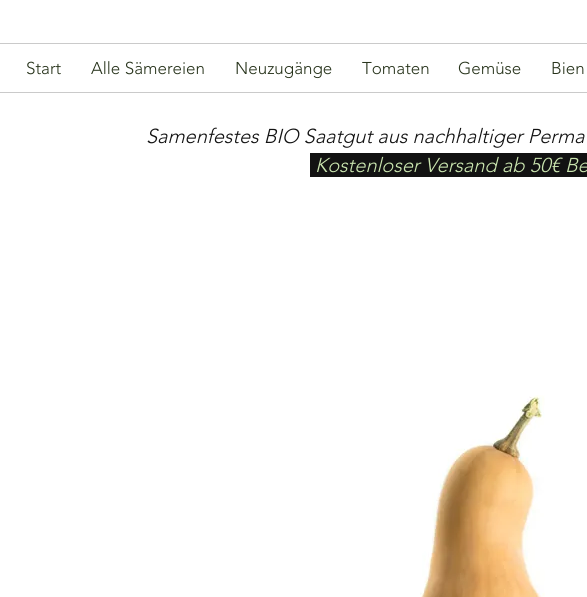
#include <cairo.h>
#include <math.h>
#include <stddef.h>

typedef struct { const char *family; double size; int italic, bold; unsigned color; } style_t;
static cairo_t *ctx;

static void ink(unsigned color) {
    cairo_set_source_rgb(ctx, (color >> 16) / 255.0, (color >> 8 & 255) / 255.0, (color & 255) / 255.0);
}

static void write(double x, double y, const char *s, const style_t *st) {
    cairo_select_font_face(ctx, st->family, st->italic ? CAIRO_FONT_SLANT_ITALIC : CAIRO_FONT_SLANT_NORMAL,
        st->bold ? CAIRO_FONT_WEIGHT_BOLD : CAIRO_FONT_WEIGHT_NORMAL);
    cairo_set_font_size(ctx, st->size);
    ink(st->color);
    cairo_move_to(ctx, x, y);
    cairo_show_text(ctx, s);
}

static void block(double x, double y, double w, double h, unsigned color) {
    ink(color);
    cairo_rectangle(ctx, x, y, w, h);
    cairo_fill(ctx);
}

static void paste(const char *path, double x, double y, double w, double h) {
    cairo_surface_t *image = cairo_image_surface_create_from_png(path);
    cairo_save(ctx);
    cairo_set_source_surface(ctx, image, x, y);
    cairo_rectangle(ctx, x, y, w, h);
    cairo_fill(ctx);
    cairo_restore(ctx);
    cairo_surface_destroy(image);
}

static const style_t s1 = {"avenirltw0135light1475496 Light", 17, 0, 0, 0x27331b};
static const style_t s2 = {"avenirltw0135light1475496 Light", 20, 1, 0, 0x121212};
static const style_t s3 = {"avenirltw0135light1475496 Light", 20, 1, 0, 0xcae5af};

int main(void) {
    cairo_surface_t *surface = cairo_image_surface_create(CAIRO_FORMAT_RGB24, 587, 597);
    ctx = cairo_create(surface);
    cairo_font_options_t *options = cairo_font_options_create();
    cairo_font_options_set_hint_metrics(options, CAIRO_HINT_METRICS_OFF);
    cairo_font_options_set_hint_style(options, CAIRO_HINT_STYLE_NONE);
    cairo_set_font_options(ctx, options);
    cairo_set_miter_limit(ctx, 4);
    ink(0xffffff);
    cairo_paint(ctx);
    block(0, 43, 587, 1, 0xcacaca);
    block(0, 92, 587, 1, 0xcacaca);
    write(26, 74, "Start", &s1);
    write(91, 74, "Alle Sämereien", &s1);
    write(235, 74, "Neuzugänge", &s1);
    write(362, 74, "Tomaten", &s1);
    write(458, 74, "Gemüse", &s1);
    write(551, 74, "Bien", &s1);
    write(146, 143, "Samenfestes BIO Saatgut aus nachhaltiger Perma", &s2);
    block(310, 153, 277, 24, 0x121212);
    write(315, 172, "Kostenloser Versand ab 50€ Be", &s3);
    paste("pic1.png", 420, 395, 125, 202);
    cairo_surface_write_to_png(surface, "screenshot.png");
    cairo_font_options_destroy(options);
    cairo_destroy(ctx);
    cairo_surface_destroy(surface);
    return 0;
}
